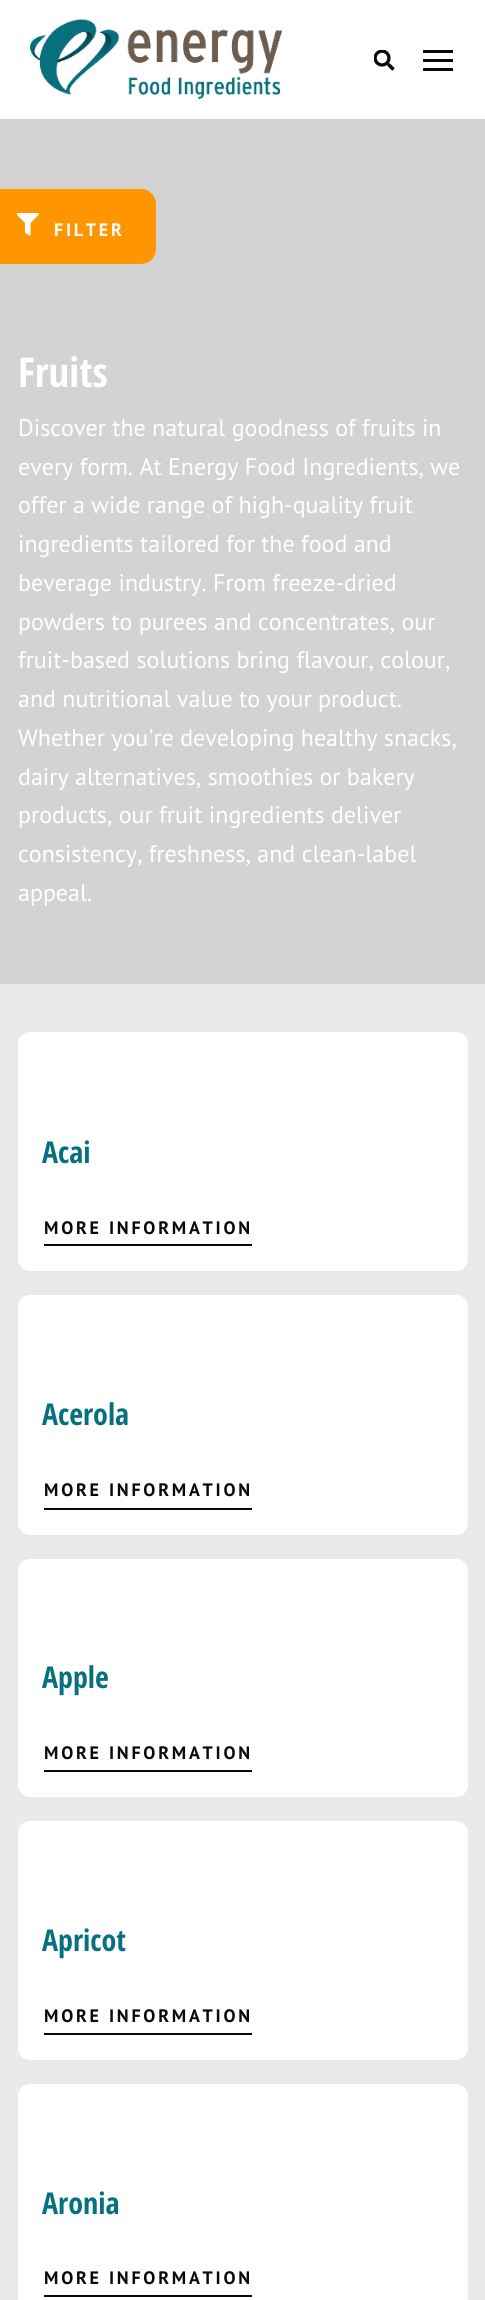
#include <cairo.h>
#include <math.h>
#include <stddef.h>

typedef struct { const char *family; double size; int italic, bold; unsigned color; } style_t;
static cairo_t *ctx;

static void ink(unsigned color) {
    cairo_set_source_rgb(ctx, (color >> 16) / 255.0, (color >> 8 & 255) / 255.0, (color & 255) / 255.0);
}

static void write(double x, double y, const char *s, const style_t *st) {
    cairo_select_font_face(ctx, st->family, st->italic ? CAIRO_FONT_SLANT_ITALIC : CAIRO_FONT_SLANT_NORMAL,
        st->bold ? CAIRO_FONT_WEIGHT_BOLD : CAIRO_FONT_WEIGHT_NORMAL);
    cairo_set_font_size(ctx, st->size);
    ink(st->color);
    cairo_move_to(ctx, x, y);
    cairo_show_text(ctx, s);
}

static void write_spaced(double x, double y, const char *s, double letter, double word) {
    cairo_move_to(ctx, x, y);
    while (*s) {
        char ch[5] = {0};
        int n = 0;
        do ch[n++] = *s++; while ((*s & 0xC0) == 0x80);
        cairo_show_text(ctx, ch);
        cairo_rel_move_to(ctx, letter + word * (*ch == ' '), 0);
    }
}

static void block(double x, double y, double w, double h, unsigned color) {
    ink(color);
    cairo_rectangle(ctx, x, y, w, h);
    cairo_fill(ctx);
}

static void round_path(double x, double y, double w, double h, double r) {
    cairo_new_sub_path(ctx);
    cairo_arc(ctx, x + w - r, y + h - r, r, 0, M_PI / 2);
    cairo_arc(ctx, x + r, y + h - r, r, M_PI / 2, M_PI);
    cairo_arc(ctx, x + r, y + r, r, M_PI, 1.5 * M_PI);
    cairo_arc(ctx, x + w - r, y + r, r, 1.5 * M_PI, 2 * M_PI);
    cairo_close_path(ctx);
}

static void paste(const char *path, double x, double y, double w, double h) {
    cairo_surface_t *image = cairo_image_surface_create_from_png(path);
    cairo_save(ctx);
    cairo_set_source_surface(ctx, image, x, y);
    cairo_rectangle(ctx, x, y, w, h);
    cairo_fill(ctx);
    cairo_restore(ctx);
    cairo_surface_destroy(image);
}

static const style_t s1 = {"Open Sans Condensed", 30, 0, 1, 0x06707e};
static const style_t s2 = {"Open Sans Condensed", 41, 0, 1, 0xffffff};
static const style_t s3 = {"PT Sans", 24, 0, 0, 0xffffff};

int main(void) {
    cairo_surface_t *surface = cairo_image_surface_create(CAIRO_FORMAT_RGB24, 485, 2300);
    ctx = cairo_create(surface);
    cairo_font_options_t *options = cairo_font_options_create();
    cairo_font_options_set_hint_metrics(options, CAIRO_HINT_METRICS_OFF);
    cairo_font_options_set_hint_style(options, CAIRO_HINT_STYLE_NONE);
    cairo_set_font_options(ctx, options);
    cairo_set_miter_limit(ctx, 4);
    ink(0xeaeaea);
    cairo_paint(ctx);
    block(0, 0, 485, 119, 0xffffff);
    paste("pic1.png", 30, 19, 252, 81);
    paste("pic2.png", 374, 50, 21, 21);
    block(423, 59, 30, 3, 0x0a0a0a);
    block(423, 50, 30, 3, 0x0a0a0a);
    block(423, 68, 30, 3, 0x0a0a0a);
    block(0, 119, 485, 865, 0xd3d3d3);
    ink(0xff9500);
    round_path(-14, 190, 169, 73, 14);
    cairo_fill_preserve(ctx);
    cairo_stroke(ctx);
    paste("pic3.png", 17, 213, 22, 23);
    cairo_select_font_face(ctx, "PT Sans", CAIRO_FONT_SLANT_NORMAL, CAIRO_FONT_WEIGHT_BOLD);
    cairo_set_font_size(ctx, 18);
    ink(0xffffff);
    write_spaced(54, 236, "FILTER", 2.75, 0);
    round_path(18, 1032, 450, 239, 12);
    cairo_fill(ctx);
    write(42, 1163, "Acai", &s1);
    cairo_select_font_face(ctx, "PT Sans", CAIRO_FONT_SLANT_NORMAL, CAIRO_FONT_WEIGHT_BOLD);
    cairo_set_font_size(ctx, 18);
    ink(0x0a0a0a);
    write_spaced(44, 1234, "MORE INFORMATION", 2.75, 0);
    block(44, 1244, 208, 2, 0x0a0a0a);
    ink(0xffffff);
    round_path(18, 1295, 450, 240, 12);
    cairo_fill(ctx);
    write(42, 1425, "Acerola", &s1);
    cairo_select_font_face(ctx, "PT Sans", CAIRO_FONT_SLANT_NORMAL, CAIRO_FONT_WEIGHT_BOLD);
    cairo_set_font_size(ctx, 18);
    ink(0x0a0a0a);
    write_spaced(44, 1496, "MORE INFORMATION", 2.75, 0);
    block(44, 1508, 208, 2, 0x0a0a0a);
    ink(0xffffff);
    round_path(18, 1559, 450, 238, 12);
    cairo_fill(ctx);
    write(42, 1688, "Apple", &s1);
    cairo_select_font_face(ctx, "PT Sans", CAIRO_FONT_SLANT_NORMAL, CAIRO_FONT_WEIGHT_BOLD);
    cairo_set_font_size(ctx, 18);
    ink(0x0a0a0a);
    write_spaced(44, 1759, "MORE INFORMATION", 2.75, 0);
    block(44, 1770, 208, 2, 0x0a0a0a);
    ink(0xffffff);
    round_path(18, 1821, 450, 239, 12);
    cairo_fill(ctx);
    write(42, 1951, "Apricot", &s1);
    cairo_select_font_face(ctx, "PT Sans", CAIRO_FONT_SLANT_NORMAL, CAIRO_FONT_WEIGHT_BOLD);
    cairo_set_font_size(ctx, 18);
    ink(0x0a0a0a);
    write_spaced(44, 2022, "MORE INFORMATION", 2.75, 0);
    block(44, 2033, 208, 2, 0x0a0a0a);
    ink(0xffffff);
    round_path(18, 2084, 450, 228, 12);
    cairo_fill(ctx);
    write(42, 2214, "Aronia", &s1);
    cairo_select_font_face(ctx, "PT Sans", CAIRO_FONT_SLANT_NORMAL, CAIRO_FONT_WEIGHT_BOLD);
    cairo_set_font_size(ctx, 18);
    ink(0x0a0a0a);
    write_spaced(44, 2284, "MORE INFORMATION", 2.75, 0);
    block(44, 2295, 208, 2, 0x0a0a0a);
    write(18, 387, "Fruits", &s2);
    write(18, 436, "Discover the natural goodness of fruits in", &s3);
    write(18, 475, "every form. At Energy Food Ingredients, we", &s3);
    write(18, 513, "offer a wide range of high-quality fruit", &s3);
    write(18, 552, "ingredients tailored for the food and", &s3);
    write(18, 591, "beverage industry. From freeze-dried", &s3);
    write(18, 630, "powders to purees and concentrates, our", &s3);
    write(18, 668, "fruit-based solutions bring flavour, colour,", &s3);
    write(18, 707, "and nutritional value to your product.", &s3);
    write(18, 746, "Whether you're developing healthy snacks,", &s3);
    write(18, 785, "dairy alternatives, smoothies or bakery", &s3);
    write(18, 823, "products, our fruit ingredients deliver", &s3);
    write(18, 862, "consistency, freshness, and clean-label", &s3);
    write(18, 901, "appeal.", &s3);
    cairo_surface_write_to_png(surface, "screenshot.png");
    cairo_font_options_destroy(options);
    cairo_destroy(ctx);
    cairo_surface_destroy(surface);
    return 0;
}
